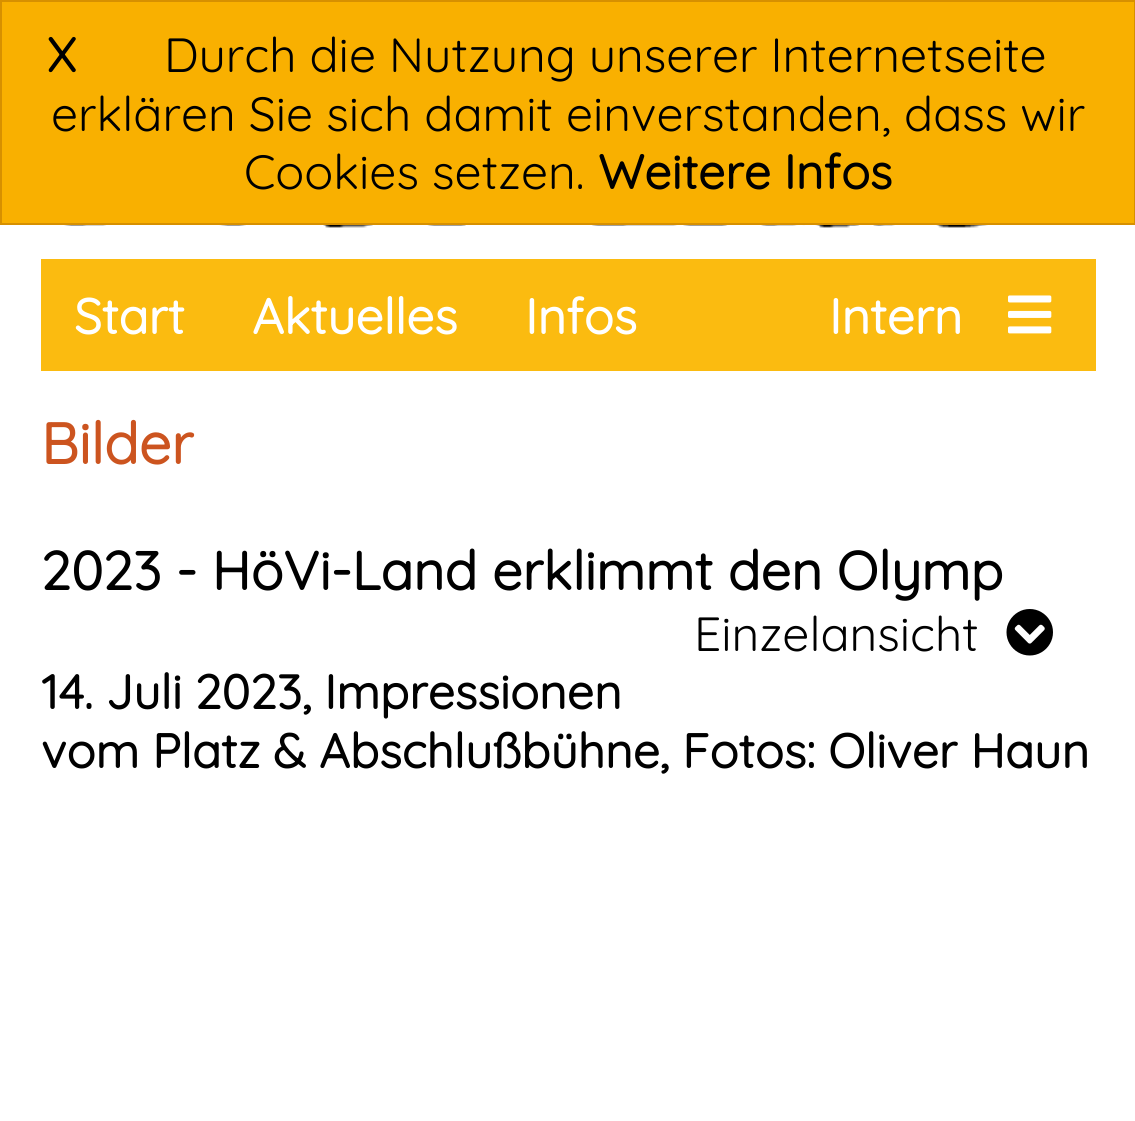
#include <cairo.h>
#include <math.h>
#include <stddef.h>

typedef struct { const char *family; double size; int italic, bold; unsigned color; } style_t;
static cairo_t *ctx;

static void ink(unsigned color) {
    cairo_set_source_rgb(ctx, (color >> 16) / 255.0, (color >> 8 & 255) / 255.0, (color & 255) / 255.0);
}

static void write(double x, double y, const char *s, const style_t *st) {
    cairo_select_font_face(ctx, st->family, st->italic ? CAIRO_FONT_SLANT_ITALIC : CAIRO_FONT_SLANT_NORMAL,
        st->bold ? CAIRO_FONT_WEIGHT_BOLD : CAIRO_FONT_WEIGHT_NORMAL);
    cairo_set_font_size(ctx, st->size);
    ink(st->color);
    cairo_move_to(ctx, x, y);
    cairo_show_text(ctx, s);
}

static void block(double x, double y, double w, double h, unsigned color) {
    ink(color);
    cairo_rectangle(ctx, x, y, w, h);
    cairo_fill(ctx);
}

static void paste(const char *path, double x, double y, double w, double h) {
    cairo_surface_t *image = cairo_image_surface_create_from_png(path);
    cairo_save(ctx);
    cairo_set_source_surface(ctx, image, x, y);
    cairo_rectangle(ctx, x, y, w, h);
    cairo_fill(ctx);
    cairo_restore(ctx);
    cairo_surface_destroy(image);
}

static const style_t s1 = {"Quicksand", 48, 0, 1, 0x000000};
static const style_t s2 = {"Quicksand", 48, 0, 0, 0x000000};
static const style_t s3 = {"Quicksand", 49.5, 0, 1, 0xffffff};
static const style_t s4 = {"Quicksand", 57.5, 0, 1, 0xcc541f};
static const style_t s5 = {"Quicksand", 54, 0, 1, 0x000000};

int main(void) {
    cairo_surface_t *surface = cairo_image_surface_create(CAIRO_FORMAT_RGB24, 1135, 1121);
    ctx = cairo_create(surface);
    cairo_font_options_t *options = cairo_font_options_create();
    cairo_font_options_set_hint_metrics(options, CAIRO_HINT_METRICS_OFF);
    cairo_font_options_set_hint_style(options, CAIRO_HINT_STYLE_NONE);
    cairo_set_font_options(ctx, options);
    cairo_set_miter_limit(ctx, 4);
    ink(0xffffff);
    cairo_paint(ctx);
    ink(0xf9b000);
    cairo_rectangle(ctx, 1, 1, 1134, 223);
    cairo_fill_preserve(ctx);
    ink(0xd79000);
    cairo_stroke(ctx);
    write(47, 72, "X", &s1);
    write(164, 72, "Durch die Nutzung unserer Internetseite", &s2);
    write(51, 131, "erklären Sie sich damit einverstanden, dass wir", &s2);
    write(244, 189, "Cookies setzen.", &s2);
    write(598, 189, "Weitere Infos", &s1);
    paste("pic1.png", 64, 225, 924, 3);
    block(41, 259, 1055, 112, 0xfbbb10);
    write(74, 334, "Start", &s3);
    write(252, 334, "Aktuelles", &s3);
    write(525, 334, "Infos", &s3);
    write(829, 334, "Intern", &s3);
    paste("pic2.png", 1008, 295, 44, 39);
    write(41, 464, "Bilder", &s4);
    write(41, 590, "2023 - HöVi-Land erklimmt den Olymp", &s5);
    write(694, 651, "Einzelansicht", &s2);
    paste("pic3.png", 1006, 609, 47, 47);
    write(41, 709, "14. Juli 2023, Impressionen", &s1);
    write(41, 768, "vom Platz & Abschlußbühne, Fotos: Oliver Haun", &s1);
    cairo_surface_write_to_png(surface, "screenshot.png");
    cairo_font_options_destroy(options);
    cairo_destroy(ctx);
    cairo_surface_destroy(surface);
    return 0;
}
